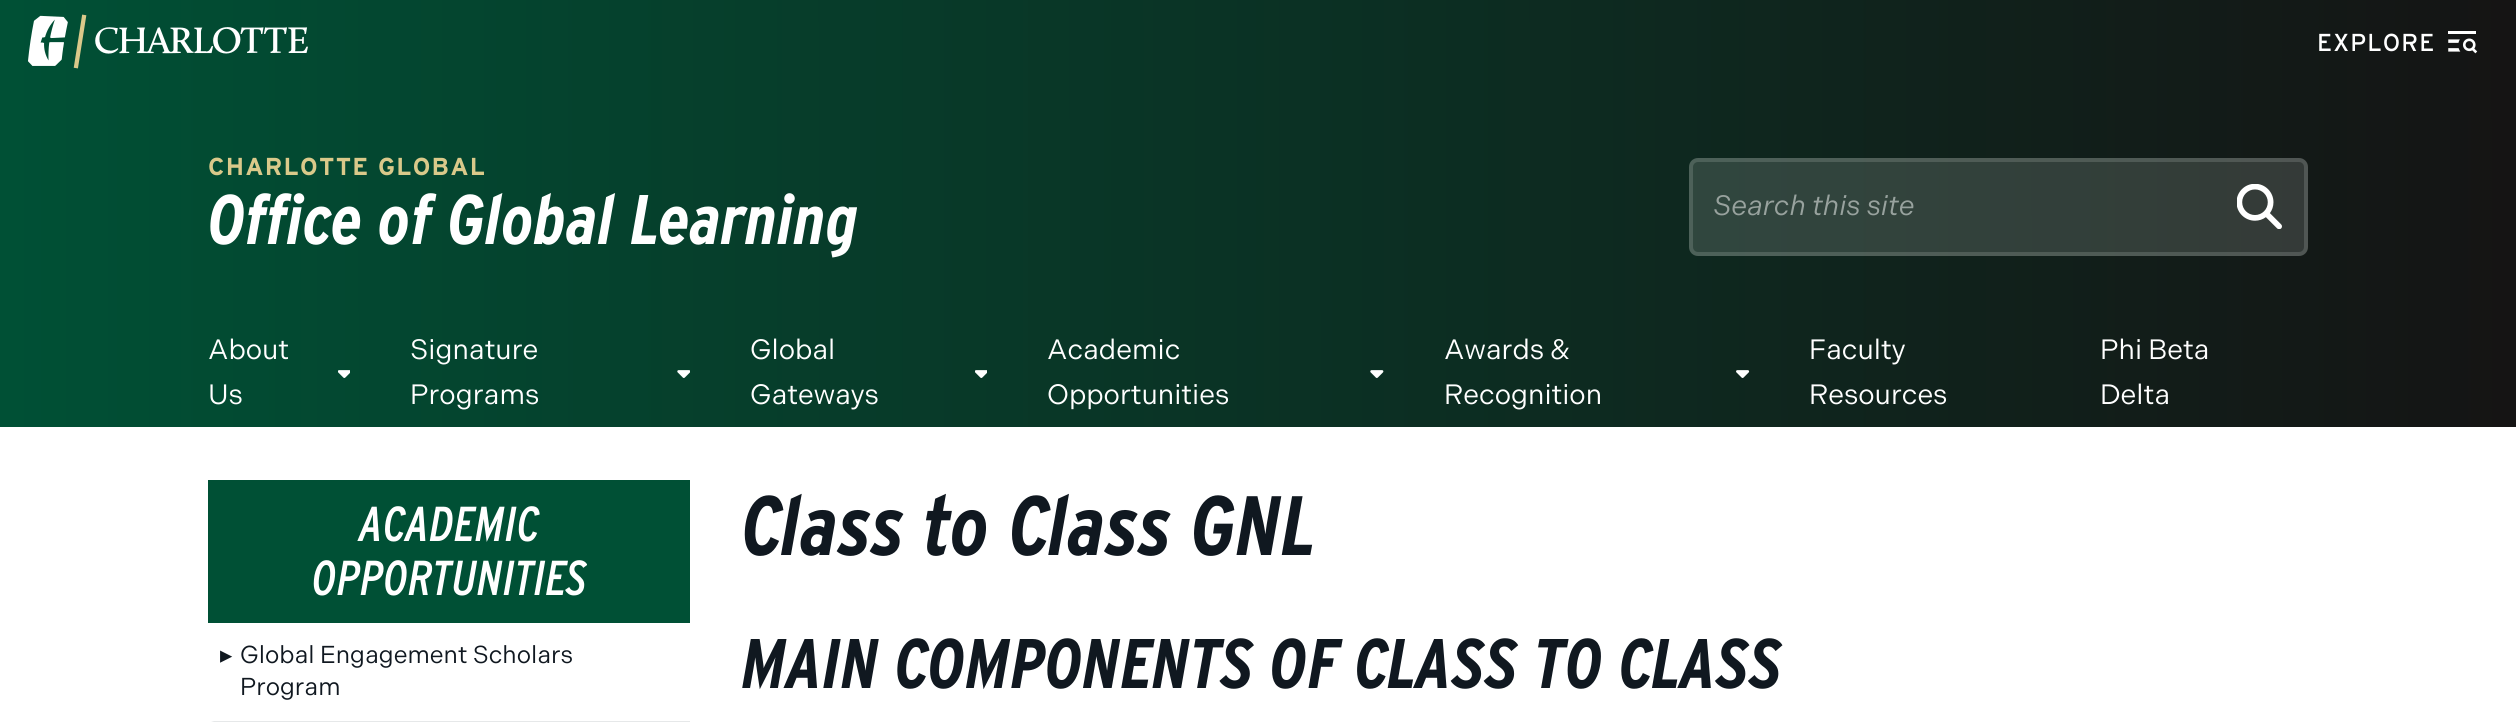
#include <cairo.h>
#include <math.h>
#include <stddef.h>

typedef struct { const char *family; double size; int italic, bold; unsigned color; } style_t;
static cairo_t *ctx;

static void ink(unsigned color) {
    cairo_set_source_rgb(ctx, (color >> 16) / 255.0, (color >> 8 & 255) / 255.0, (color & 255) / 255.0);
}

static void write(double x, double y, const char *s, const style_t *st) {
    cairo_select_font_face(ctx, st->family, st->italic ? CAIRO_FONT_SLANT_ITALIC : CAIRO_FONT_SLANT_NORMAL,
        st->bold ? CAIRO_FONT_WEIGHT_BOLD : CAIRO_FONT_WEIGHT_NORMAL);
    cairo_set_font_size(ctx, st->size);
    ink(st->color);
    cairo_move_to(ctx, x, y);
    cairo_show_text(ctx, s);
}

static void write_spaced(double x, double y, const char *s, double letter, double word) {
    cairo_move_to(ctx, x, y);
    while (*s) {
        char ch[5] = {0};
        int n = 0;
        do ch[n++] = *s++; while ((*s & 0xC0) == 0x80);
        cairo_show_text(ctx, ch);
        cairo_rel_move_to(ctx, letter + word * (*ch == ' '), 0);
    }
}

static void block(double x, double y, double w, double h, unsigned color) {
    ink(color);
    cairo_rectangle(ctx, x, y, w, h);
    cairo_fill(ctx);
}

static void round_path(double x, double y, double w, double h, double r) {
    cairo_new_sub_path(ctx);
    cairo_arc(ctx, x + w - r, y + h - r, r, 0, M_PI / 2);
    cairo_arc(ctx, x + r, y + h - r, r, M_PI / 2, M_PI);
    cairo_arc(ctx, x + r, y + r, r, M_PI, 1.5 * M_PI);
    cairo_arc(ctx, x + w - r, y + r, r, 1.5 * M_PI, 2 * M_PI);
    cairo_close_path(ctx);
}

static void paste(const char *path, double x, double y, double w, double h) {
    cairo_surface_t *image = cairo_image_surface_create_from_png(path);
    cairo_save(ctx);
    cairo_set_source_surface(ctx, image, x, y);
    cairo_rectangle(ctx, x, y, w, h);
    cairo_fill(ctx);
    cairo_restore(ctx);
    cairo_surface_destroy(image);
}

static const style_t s1 = {"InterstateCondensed", 70, 1, 1, 0xffffff};
static const style_t s2 = {"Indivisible", 28, 1, 0, 0x98a29e};
static const style_t s3 = {"Indivisible", 28, 0, 0, 0xffffff};
static const style_t s4 = {"InterstateCondensed", 49, 1, 0, 0xffffff};
static const style_t s5 = {"DejaVu Sans", 24.5, 0, 0, 0x101820};
static const style_t s6 = {"Indivisible", 24.5, 0, 0, 0x101820};
static const style_t s7 = {"InterstateCondensed", 84, 1, 1, 0x101820};
static const style_t s8 = {"InterstateCondensed", 70, 1, 1, 0x101820};

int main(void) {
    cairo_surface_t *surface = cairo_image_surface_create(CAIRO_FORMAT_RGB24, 2516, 722);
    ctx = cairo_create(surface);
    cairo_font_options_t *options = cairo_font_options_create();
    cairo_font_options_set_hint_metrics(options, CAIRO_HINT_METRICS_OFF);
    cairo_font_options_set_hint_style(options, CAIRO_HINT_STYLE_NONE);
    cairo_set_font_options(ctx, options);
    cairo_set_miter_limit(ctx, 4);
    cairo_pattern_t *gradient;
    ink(0xffffff);
    cairo_paint(ctx);
    gradient = cairo_pattern_create_linear(0, 214, 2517, 213);
    cairo_pattern_add_color_stop_rgba(gradient, 0, 0, 0.314, 0.208, 1);
    cairo_pattern_add_color_stop_rgba(gradient, 1, 0.082, 0.078, 0.078, 1);
    cairo_set_source(ctx, gradient);
    cairo_pattern_destroy(gradient);
    cairo_rectangle(ctx, 0, 0, 2516, 427);
    cairo_fill(ctx);
    paste("pic1.png", 28, 14, 280, 55);
    cairo_select_font_face(ctx, "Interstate", CAIRO_FONT_SLANT_NORMAL, CAIRO_FONT_WEIGHT_NORMAL);
    cairo_set_font_size(ctx, 24.5);
    ink(0xffffff);
    write_spaced(2317, 51, "EXPLORE", 1, 0);
    paste("pic2.png", 2448, 31, 30, 23);
    cairo_select_font_face(ctx, "Interstate", CAIRO_FONT_SLANT_NORMAL, CAIRO_FONT_WEIGHT_BOLD);
    ink(0xdac98a);
    write_spaced(208, 175, "CHARLOTTE GLOBAL", 1.25, 0);
    write(208, 244, "Office of Global Learning", &s1);
    cairo_set_source_rgba(ctx, 0.949, 0.965, 0.961, 0.15);
    round_path(1689, 158, 619, 98, 9);
    cairo_fill(ctx);
    round_path(1691, 160, 615, 94, 7);
    cairo_set_line_width(ctx, 4);
    cairo_stroke(ctx);
    write(1713, 215, "Search this site", &s2);
    paste("pic3.png", 2237, 184, 45, 45);
    write(208, 359, "About", &s3);
    paste("pic4.png", 338, 370, 12, 8);
    write(208, 404, "Us", &s3);
    write(410, 359, "Signature", &s3);
    paste("pic5.png", 677, 370, 13, 8);
    write(410, 404, "Programs", &s3);
    write(750, 359, "Global", &s3);
    paste("pic6.png", 975, 370, 12, 8);
    write(750, 404, "Gateways", &s3);
    write(1047, 359, "Academic", &s3);
    paste("pic7.png", 1370, 370, 14, 8);
    write(1047, 404, "Opportunities", &s3);
    write(1444, 359, "Awards &", &s3);
    paste("pic8.png", 1736, 370, 14, 8);
    write(1444, 404, "Recognition", &s3);
    write(1809, 359, "Faculty", &s3);
    write(1809, 404, "Resources", &s3);
    write(2100, 359, "Phi Beta", &s3);
    write(2100, 404, "Delta", &s3);
    block(208, 480, 482, 143, 0x005035);
    write(359, 541, "ACADEMIC", &s4);
    write(312, 595, "OPPORTUNITIES", &s4);
    write(220, 663, "▸", &s5);
    ink(0xe6e8e9);
    cairo_new_path(ctx);
    cairo_move_to(ctx, 690, 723);
    cairo_line_to(ctx, 208, 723);
    cairo_line_to(ctx, 214, 721);
    cairo_line_to(ctx, 690, 721);
    cairo_close_path(ctx);
    cairo_fill(ctx);
    write(240, 663, "Global Engagement Scholars", &s6);
    write(240, 695, "Program", &s6);
    write(742, 555, "Class to Class GNL", &s7);
    write(742, 688, "MAIN COMPONENTS OF CLASS TO CLASS", &s8);
    cairo_surface_write_to_png(surface, "screenshot.png");
    cairo_font_options_destroy(options);
    cairo_destroy(ctx);
    cairo_surface_destroy(surface);
    return 0;
}
